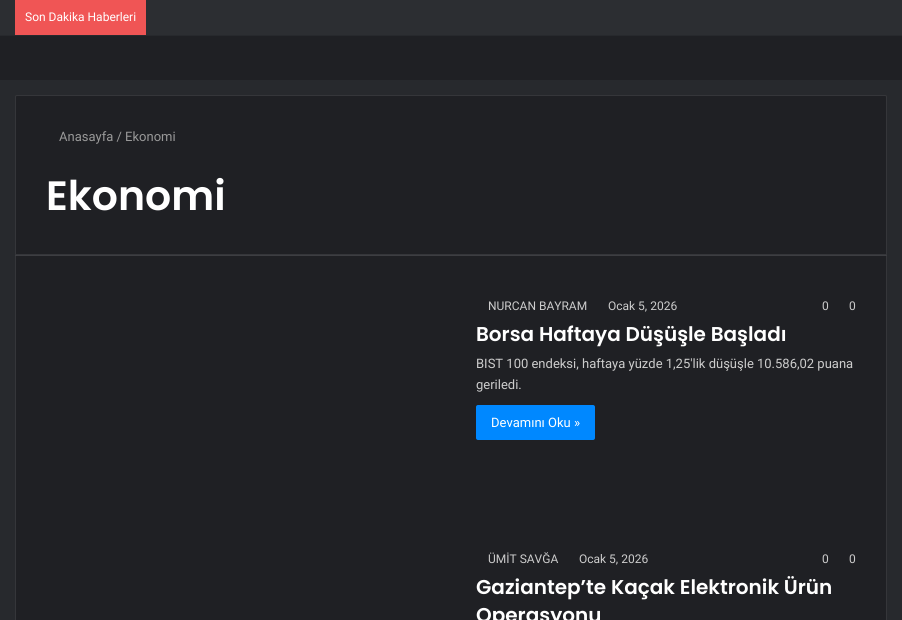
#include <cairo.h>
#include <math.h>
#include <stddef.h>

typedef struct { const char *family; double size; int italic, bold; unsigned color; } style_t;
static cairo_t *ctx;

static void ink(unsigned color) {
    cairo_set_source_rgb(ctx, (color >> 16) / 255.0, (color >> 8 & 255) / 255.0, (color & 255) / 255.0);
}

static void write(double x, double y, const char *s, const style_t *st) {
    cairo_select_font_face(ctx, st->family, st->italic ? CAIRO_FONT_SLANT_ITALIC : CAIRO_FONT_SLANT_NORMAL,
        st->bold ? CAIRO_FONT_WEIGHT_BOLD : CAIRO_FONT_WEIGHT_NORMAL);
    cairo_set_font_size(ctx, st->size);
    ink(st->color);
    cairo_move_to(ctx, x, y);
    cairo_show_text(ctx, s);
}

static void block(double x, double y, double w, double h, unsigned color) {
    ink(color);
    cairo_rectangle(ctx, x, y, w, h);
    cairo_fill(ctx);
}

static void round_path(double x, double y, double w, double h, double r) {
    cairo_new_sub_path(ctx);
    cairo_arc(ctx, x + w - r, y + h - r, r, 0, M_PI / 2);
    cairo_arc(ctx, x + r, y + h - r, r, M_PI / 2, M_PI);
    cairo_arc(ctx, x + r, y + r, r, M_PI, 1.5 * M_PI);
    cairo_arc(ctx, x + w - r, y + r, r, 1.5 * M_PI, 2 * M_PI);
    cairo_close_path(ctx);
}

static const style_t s1 = {"Roboto", 12, 0, 0, 0xffffff};
static const style_t s2 = {"Roboto", 13, 0, 0, 0x999999};
static const style_t s3 = {"Poppins SemiBold", 41, 0, 0, 0xffffff};
static const style_t s4 = {"Roboto", 12, 0, 0, 0xcccccc};
static const style_t s5 = {"Poppins SemiBold", 20, 0, 0, 0xffffff};
static const style_t s6 = {"Roboto", 13, 0, 0, 0xcccccc};
static const style_t s7 = {"Roboto", 13, 0, 0, 0xffffff};

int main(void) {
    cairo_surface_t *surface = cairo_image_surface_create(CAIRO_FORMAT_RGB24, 902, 620);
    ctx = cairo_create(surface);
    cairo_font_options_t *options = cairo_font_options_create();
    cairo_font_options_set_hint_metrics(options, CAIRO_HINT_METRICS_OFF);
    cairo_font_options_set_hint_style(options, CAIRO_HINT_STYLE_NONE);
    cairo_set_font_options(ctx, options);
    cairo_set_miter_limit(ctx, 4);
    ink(0x27292d);
    cairo_paint(ctx);
    block(0, 0, 902, 35, 0x2c2e32);
    block(15, 0, 131, 35, 0xf05555);
    write(25, 21, "Son Dakika Haberleri", &s1);
    block(0, 36, 902, 44, 0x1f2024);
    cairo_new_path(ctx);
    cairo_move_to(ctx, 17, 95.5);
    cairo_line_to(ctx, 885, 95.5);
    cairo_curve_to(ctx, 886, 95.5, 886.5, 96, 886.5, 97);
    cairo_line_to(ctx, 886.5, 254.5);
    cairo_line_to(ctx, 15.5, 254.5);
    cairo_line_to(ctx, 15.5, 97);
    cairo_curve_to(ctx, 15.5, 96, 16, 95.5, 17, 95.5);
    cairo_close_path(ctx);
    cairo_fill_preserve(ctx);
    ink(0x35363a);
    cairo_set_line_width(ctx, 1);
    cairo_stroke(ctx);
    write(59, 141, "Anasayfa / Ekonomi", &s2);
    write(46, 210, "Ekonomi", &s3);
    block(15, 255, 872, 1, 0x3d3e42);
    block(16, 256, 870, 364, 0x1f2024);
    block(886, 256, 1, 364, 0x35363a);
    block(15, 256, 1, 364, 0x35363a);
    write(488, 310, "NURCAN BAYRAM", &s4);
    write(608, 310, "Ocak 5, 2026", &s4);
    write(822, 310, "0", &s4);
    write(849, 310, "0", &s4);
    write(476, 341, "Borsa Haftaya Düşüşle Başladı", &s5);
    write(476, 368, "BIST 100 endeksi, haftaya yüzde 1,25'lik düşüşle 10.586,02 puana", &s6);
    write(476, 389, "geriledi.", &s6);
    ink(0x0088ff);
    round_path(476, 405, 119, 35, 2);
    cairo_fill(ctx);
    write(491, 427, "Devamını Oku »", &s7);
    write(488, 563, "ÜMİT SAVĞA", &s4);
    write(579, 563, "Ocak 5, 2026", &s4);
    write(822, 563, "0", &s4);
    write(849, 563, "0", &s4);
    write(476, 594, "Gaziantep’te Kaçak Elektronik Ürün", &s5);
    write(476, 622, "Operasyonu", &s5);
    cairo_surface_write_to_png(surface, "screenshot.png");
    cairo_font_options_destroy(options);
    cairo_destroy(ctx);
    cairo_surface_destroy(surface);
    return 0;
}
